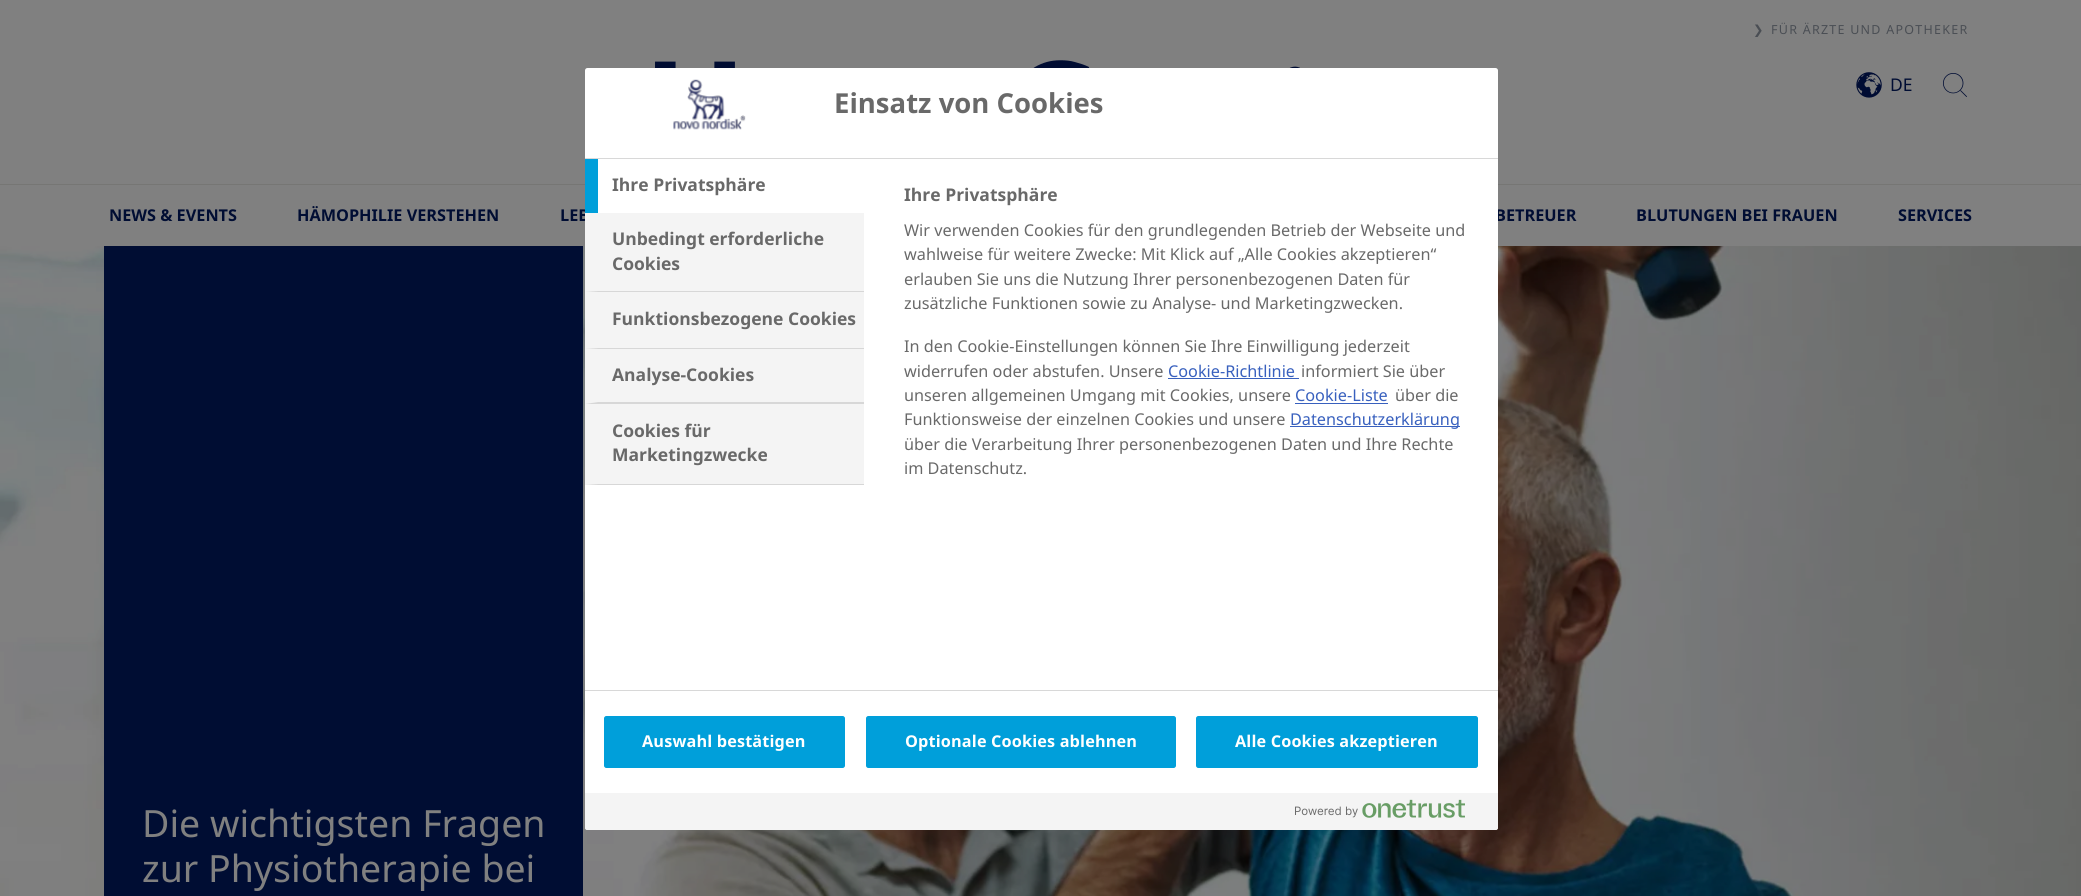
#include <cairo.h>
#include <math.h>
#include <stddef.h>

typedef struct { const char *family; double size; int italic, bold; unsigned color; } style_t;
static cairo_t *ctx;

static void ink(unsigned color) {
    cairo_set_source_rgb(ctx, (color >> 16) / 255.0, (color >> 8 & 255) / 255.0, (color & 255) / 255.0);
}

static void write(double x, double y, const char *s, const style_t *st) {
    cairo_select_font_face(ctx, st->family, st->italic ? CAIRO_FONT_SLANT_ITALIC : CAIRO_FONT_SLANT_NORMAL,
        st->bold ? CAIRO_FONT_WEIGHT_BOLD : CAIRO_FONT_WEIGHT_NORMAL);
    cairo_set_font_size(ctx, st->size);
    ink(st->color);
    cairo_move_to(ctx, x, y);
    cairo_show_text(ctx, s);
}

static void write_spaced(double x, double y, const char *s, double letter, double word) {
    cairo_move_to(ctx, x, y);
    while (*s) {
        char ch[5] = {0};
        int n = 0;
        do ch[n++] = *s++; while ((*s & 0xC0) == 0x80);
        cairo_show_text(ctx, ch);
        cairo_rel_move_to(ctx, letter + word * (*ch == ' '), 0);
    }
}

static void block(double x, double y, double w, double h, unsigned color) {
    ink(color);
    cairo_rectangle(ctx, x, y, w, h);
    cairo_fill(ctx);
}

static void round_path(double x, double y, double w, double h, double r) {
    cairo_new_sub_path(ctx);
    cairo_arc(ctx, x + w - r, y + h - r, r, 0, M_PI / 2);
    cairo_arc(ctx, x + r, y + h - r, r, M_PI / 2, M_PI);
    cairo_arc(ctx, x + r, y + r, r, M_PI, 1.5 * M_PI);
    cairo_arc(ctx, x + w - r, y + r, r, 1.5 * M_PI, 2 * M_PI);
    cairo_close_path(ctx);
}

static void paste(const char *path, double x, double y, double w, double h) {
    cairo_surface_t *image = cairo_image_surface_create_from_png(path);
    cairo_save(ctx);
    cairo_set_source_surface(ctx, image, x, y);
    cairo_rectangle(ctx, x, y, w, h);
    cairo_fill(ctx);
    cairo_restore(ctx);
    cairo_surface_destroy(image);
}

static const style_t s1 = {"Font", 17.5, 0, 0, 0x000d33};
static const style_t s2 = {"Font", 16.25, 0, 1, 0x000d33};
static const style_t s3 = {"Font", 37.5, 0, 0, 0x808080};
static const style_t s4 = {"Font", 27.5, 0, 1, 0x696969};
static const style_t s5 = {"Font", 17.5, 0, 1, 0x696969};
static const style_t s6 = {"Font", 16.25, 0, 0, 0x696969};
static const style_t s7 = {"Font", 16.25, 0, 0, 0x3860be};

int main(void) {
    cairo_surface_t *surface = cairo_image_surface_create(CAIRO_FORMAT_RGB24, 2081, 896);
    ctx = cairo_create(surface);
    cairo_font_options_t *options = cairo_font_options_create();
    cairo_font_options_set_hint_metrics(options, CAIRO_HINT_METRICS_OFF);
    cairo_font_options_set_hint_style(options, CAIRO_HINT_STYLE_NONE);
    cairo_set_font_options(ctx, options);
    cairo_set_miter_limit(ctx, 4);
    ink(0x808080);
    cairo_paint(ctx);
    cairo_select_font_face(ctx, "DejaVu Sans", CAIRO_FONT_SLANT_NORMAL, CAIRO_FONT_WEIGHT_NORMAL);
    cairo_set_font_size(ctx, 12.5);
    ink(0x4a4e54);
    write_spaced(1753, 34, "❯", 1.25, 0);
    cairo_select_font_face(ctx, "Font", CAIRO_FONT_SLANT_NORMAL, CAIRO_FONT_WEIGHT_NORMAL);
    write_spaced(1771, 34, "FÜR ÄRZTE UND APOTHEKER", 1.25, 0);
    paste("pic1.png", 655, 60, 645, 8);
    paste("pic2.png", 1856, 72, 26, 26);
    write(1890, 91, "DE", &s1);
    paste("pic3.png", 1943, 73, 24, 24);
    block(0, 184, 2081, 1, 0x767674);
    write(109, 221, "NEWS & EVENTS", &s2);
    write(297, 221, "HÄMOPHILIE VERSTEHEN", &s2);
    write(560, 221, "LEB", &s2);
    write(1495, 221, "BETREUER", &s2);
    write(1636, 221, "BLUTUNGEN BEI FRAUEN", &s2);
    write(1898, 221, "SERVICES", &s2);
    paste("pic4.png", 0, 246, 2081, 650);
    block(104, 246, 479, 650, 0x000d33);
    write(142, 837, "Die wichtigsten Fragen", &s3);
    write(142, 882, "zur Physiotherapie bei", &s3);
    ink(0xffffff);
    round_path(585, 68, 913, 762, 2.5);
    cairo_fill(ctx);
    block(585, 158, 913, 1, 0xd8d8d8);
    paste("pic5.png", 673, 79, 73, 51);
    write(834, 113, "Einsatz von Cookies", &s4);
    block(585, 159, 13, 54, 0x009fda);
    write(612, 191, "Ihre Privatsphäre", &s5);
    block(585, 213, 279, 272, 0xf4f4f4);
    ink(0xd7d7d7);
    cairo_new_path(ctx);
    cairo_move_to(ctx, 864, 292);
    cairo_line_to(ctx, 585, 292);
    cairo_line_to(ctx, 598, 291);
    cairo_line_to(ctx, 864, 291);
    cairo_close_path(ctx);
    cairo_fill(ctx);
    write(612, 245, "Unbedingt erforderliche", &s5);
    write(612, 270, "Cookies", &s5);
    ink(0xd7d7d7);
    cairo_new_path(ctx);
    cairo_move_to(ctx, 864, 349);
    cairo_line_to(ctx, 585, 349);
    cairo_line_to(ctx, 598, 348);
    cairo_line_to(ctx, 864, 348);
    cairo_close_path(ctx);
    cairo_fill(ctx);
    write(612, 325, "Funktionsbezogene Cookies", &s5);
    ink(0xd7d7d7);
    cairo_new_path(ctx);
    cairo_move_to(ctx, 864, 404);
    cairo_line_to(ctx, 585, 404);
    cairo_line_to(ctx, 598, 402);
    cairo_line_to(ctx, 864, 402);
    cairo_close_path(ctx);
    cairo_fill(ctx);
    write(612, 381, "Analyse-Cookies", &s5);
    ink(0xd7d7d7);
    cairo_new_path(ctx);
    cairo_move_to(ctx, 864, 485);
    cairo_line_to(ctx, 585, 485);
    cairo_line_to(ctx, 598, 484);
    cairo_line_to(ctx, 864, 484);
    cairo_close_path(ctx);
    cairo_fill(ctx);
    write(612, 437, "Cookies für", &s5);
    write(612, 461, "Marketingzwecke", &s5);
    write(904, 201, "Ihre Privatsphäre", &s5);
    write(904, 236, "Wir verwenden Cookies für den grundlegenden Betrieb der Webseite und", &s6);
    write(904, 260, "wahlweise für weitere Zwecke: Mit Klick auf „Alle Cookies akzeptieren“", &s6);
    write(904, 285, "erlauben Sie uns die Nutzung Ihrer personenbezogenen Daten für", &s6);
    write(904, 309, "zusätzliche Funktionen sowie zu Analyse- und Marketingzwecken.", &s6);
    write(904, 352, "In den Cookie-Einstellungen können Sie Ihre Einwilligung jederzeit", &s6);
    write(904, 377, "widerrufen oder abstufen. Unsere", &s6);
    write(1168, 377, "Cookie-Richtlinie", &s7);
    block(1168, 378, 131, 1, 0x3860be);
    write(1301, 377, "informiert Sie über", &s6);
    write(904, 401, "unseren allgemeinen Umgang mit Cookies, unsere", &s6);
    write(1295, 401, "Cookie-Liste", &s7);
    block(1295, 403, 93, 1, 0x3860be);
    write(1395, 401, "über die", &s6);
    write(904, 425, "Funktionsweise der einzelnen Cookies und unsere", &s6);
    block(1290, 426, 170, 1, 0x3860be);
    write(1290, 425, "Datenschutzerklärung", &s7);
    write(904, 450, "über die Verarbeitung Ihrer personenbezogenen Daten und Ihre Rechte", &s6);
    write(904, 474, "im Datenschutz.", &s6);
    block(585, 690, 913, 1, 0xd8d8d8);
    ink(0x009fda);
    round_path(604.5, 716.5, 240, 51, 2);
    cairo_fill_preserve(ctx);
    cairo_set_line_width(ctx, 1);
    cairo_stroke(ctx);
    cairo_select_font_face(ctx, "Font", CAIRO_FONT_SLANT_NORMAL, CAIRO_FONT_WEIGHT_BOLD);
    ink(0xffffff);
    write_spaced(642, 747, "Auswahl bestätigen", 0.15, 0);
    ink(0x009fda);
    round_path(866.5, 716.5, 309, 51, 2);
    cairo_fill_preserve(ctx);
    cairo_stroke(ctx);
    ink(0xffffff);
    write_spaced(905, 747, "Optionale Cookies ablehnen", 0.15, 0);
    ink(0x009fda);
    round_path(1196.5, 716.5, 281, 51, 2);
    cairo_fill_preserve(ctx);
    cairo_stroke(ctx);
    ink(0xffffff);
    write_spaced(1235, 747, "Alle Cookies akzeptieren", 0.15, 0);
    ink(0xf4f4f4);
    cairo_new_path(ctx);
    cairo_move_to(ctx, 585, 793);
    cairo_line_to(ctx, 1498, 793);
    cairo_line_to(ctx, 1498, 827.5);
    cairo_curve_to(ctx, 1498, 829, 1497, 830, 1495.5, 830);
    cairo_line_to(ctx, 587.5, 830);
    cairo_curve_to(ctx, 586, 830, 585, 829, 585, 827.5);
    cairo_close_path(ctx);
    cairo_fill(ctx);
    paste("pic6.png", 1295, 799, 170, 19);
    cairo_surface_write_to_png(surface, "screenshot.png");
    cairo_font_options_destroy(options);
    cairo_destroy(ctx);
    cairo_surface_destroy(surface);
    return 0;
}
